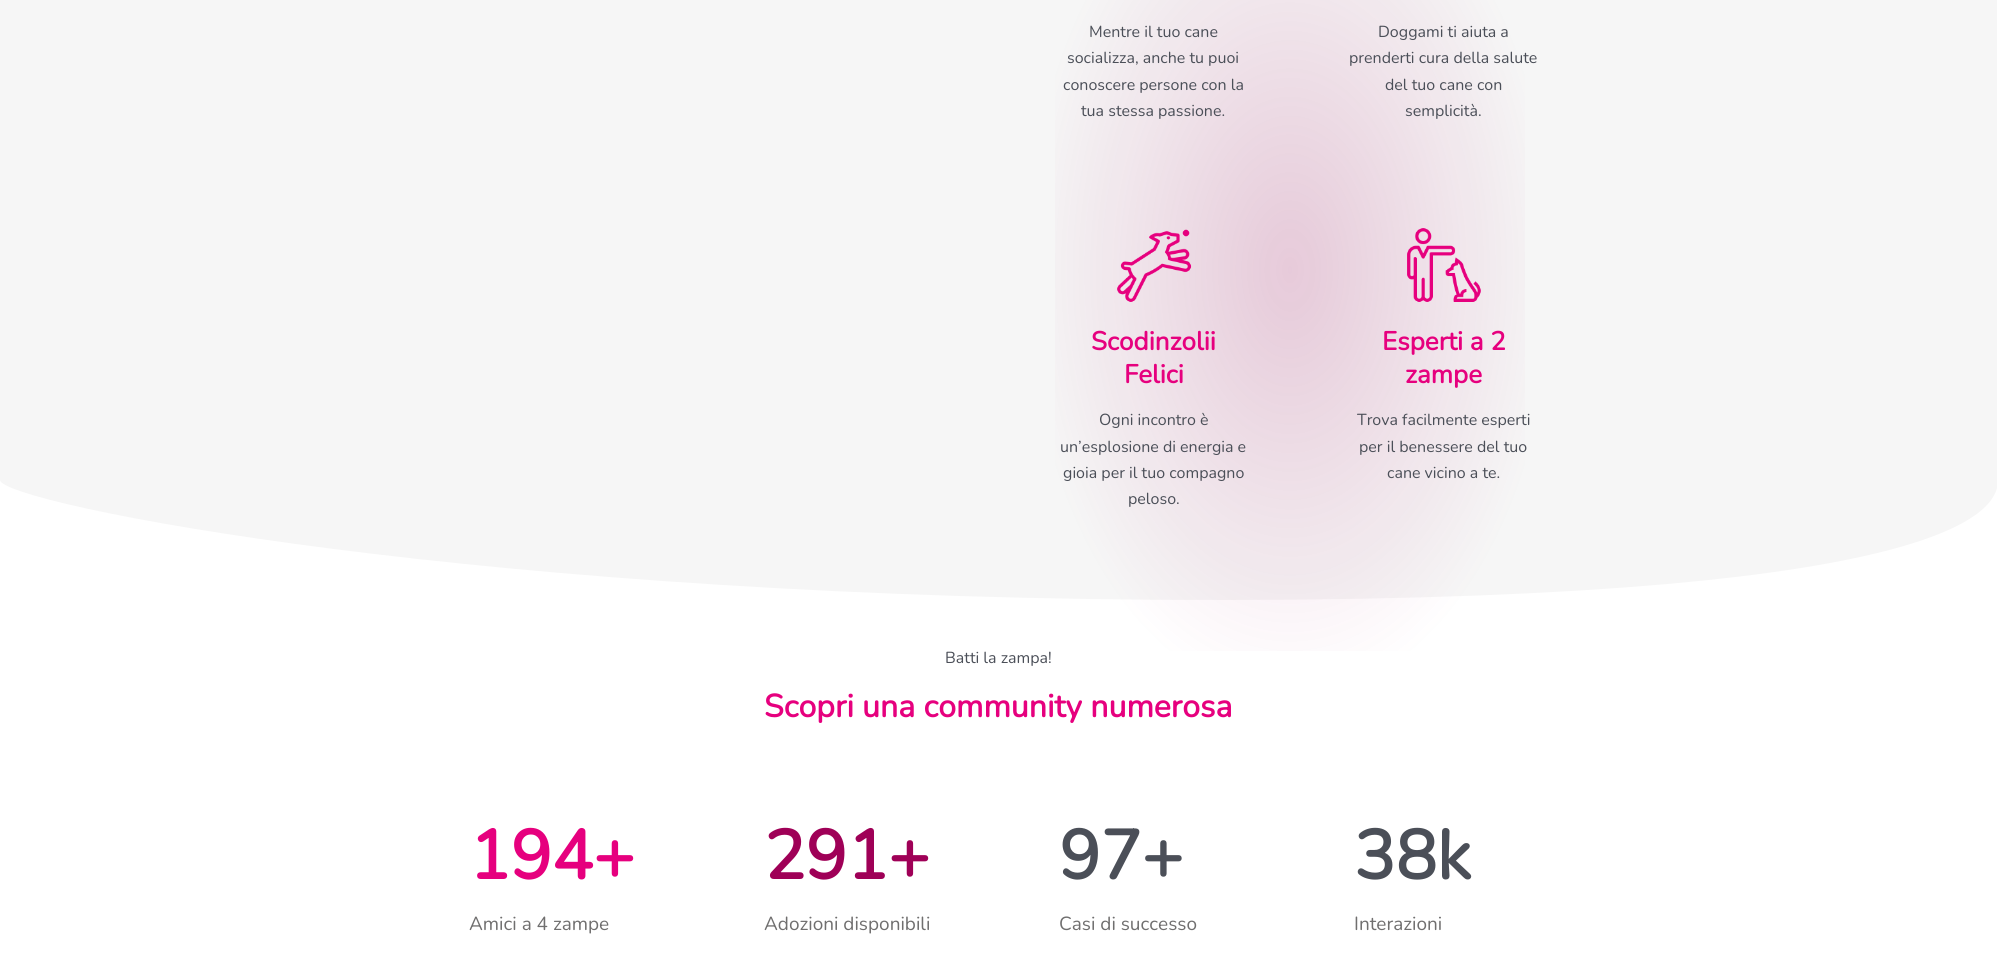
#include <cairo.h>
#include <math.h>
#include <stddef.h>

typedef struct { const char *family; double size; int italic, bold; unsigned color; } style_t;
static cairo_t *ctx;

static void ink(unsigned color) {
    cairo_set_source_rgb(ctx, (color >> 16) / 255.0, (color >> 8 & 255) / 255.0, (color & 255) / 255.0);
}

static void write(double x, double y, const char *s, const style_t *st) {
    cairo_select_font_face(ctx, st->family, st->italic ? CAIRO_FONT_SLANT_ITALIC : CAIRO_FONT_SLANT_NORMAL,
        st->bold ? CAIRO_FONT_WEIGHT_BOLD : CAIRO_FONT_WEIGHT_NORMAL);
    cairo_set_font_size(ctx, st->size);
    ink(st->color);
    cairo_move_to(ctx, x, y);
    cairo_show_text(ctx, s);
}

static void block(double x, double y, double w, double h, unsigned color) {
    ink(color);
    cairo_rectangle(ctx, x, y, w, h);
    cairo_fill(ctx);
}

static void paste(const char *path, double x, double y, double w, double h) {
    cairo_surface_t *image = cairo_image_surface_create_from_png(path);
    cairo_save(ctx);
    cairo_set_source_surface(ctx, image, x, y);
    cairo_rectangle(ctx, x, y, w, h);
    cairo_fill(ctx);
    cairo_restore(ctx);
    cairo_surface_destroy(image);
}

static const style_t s1 = {"Nunito ExtraLight", 16, 0, 0, 0x4b4f58};
static const style_t s2 = {"Nunito", 26, 0, 1, 0xe6007e};
static const style_t s3 = {"Nunito", 32, 0, 1, 0xe6007e};
static const style_t s4 = {"Nunito", 69, 0, 1, 0xe6007e};
static const style_t s5 = {"Nunito ExtraLight", 19, 0, 0, 0x706f6f};
static const style_t s6 = {"Nunito", 69, 0, 1, 0x9f0057};
static const style_t s7 = {"Nunito", 69, 0, 1, 0x4b4f58};

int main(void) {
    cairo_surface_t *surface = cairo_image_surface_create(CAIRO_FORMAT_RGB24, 1997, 974);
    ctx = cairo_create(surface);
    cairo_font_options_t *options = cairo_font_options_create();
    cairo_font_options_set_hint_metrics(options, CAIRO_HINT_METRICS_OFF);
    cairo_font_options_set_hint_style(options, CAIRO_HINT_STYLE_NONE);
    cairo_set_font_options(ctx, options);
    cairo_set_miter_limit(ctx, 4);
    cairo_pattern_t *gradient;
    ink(0xf6f6f6);
    cairo_paint(ctx);
    ink(0xffffff);
    cairo_new_path(ctx);
    cairo_move_to(ctx, 1229, 600);
    cairo_curve_to(ctx, 480, 601, 0, 503, 0, 480);
    cairo_line_to(ctx, 0, 604);
    cairo_line_to(ctx, 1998, 604);
    cairo_line_to(ctx, 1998, 480);
    cairo_curve_to(ctx, 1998, 504, 1978, 599, 1229, 600);
    cairo_close_path(ctx);
    cairo_fill(ctx);
    block(0, 604, 1997, 370, 0xffffff);
    gradient = cairo_pattern_create_radial(0, 0, 0, 0, 0, 1);
    cairo_pattern_set_matrix(gradient, &(cairo_matrix_t){1.0 / 382, 0, 0, 1.0 / 620, -1.0 * 1290 / 382, -1.0 * 270 / 620});
    cairo_pattern_add_color_stop_rgba(gradient, 0, 0.624, 0, 0.341, 0.18);
    cairo_pattern_add_color_stop_rgba(gradient, 0.7, 0.624, 0, 0.341, 0);
    cairo_set_source(ctx, gradient);
    cairo_pattern_destroy(gradient);
    cairo_rectangle(ctx, 1055, 0, 470, 651);
    cairo_fill(ctx);
    write(1089, 37, "Mentre il tuo cane", &s1);
    write(1067, 63, "socializza, anche tu puoi", &s1);
    write(1063, 90, "conoscere persone con la", &s1);
    write(1081, 116, "tua stessa passione.", &s1);
    write(1378, 37, "Doggami ti aiuta a", &s1);
    write(1349, 63, "prenderti cura della salute", &s1);
    write(1385, 90, "del tuo cane con", &s1);
    write(1405, 116, "semplicità.", &s1);
    paste("pic1.png", 1117, 229, 75, 73);
    write(1091, 350, "Scodinzolii", &s2);
    write(1124, 383, "Felici", &s2);
    write(1099, 425, "Ogni incontro è", &s1);
    write(1060, 452, "un’esplosione di energia e", &s1);
    write(1063, 478, "gioia per il tuo compagno", &s1);
    write(1128, 504, "peloso.", &s1);
    paste("pic2.png", 1407, 228, 74, 74);
    write(1382, 350, "Esperti a 2", &s2);
    write(1405, 383, "zampe", &s2);
    write(1357, 425, "Trova facilmente esperti", &s1);
    write(1359, 452, "per il benessere del tuo", &s1);
    write(1387, 478, "cane vicino a te.", &s1);
    write(945, 663, "Batti la zampa!", &s1);
    write(764, 717, "Scopri una community numerosa", &s3);
    write(469, 879, "194+", &s4);
    write(469, 930, "Amici a 4 zampe", &s5);
    write(764, 879, "291+", &s6);
    write(764, 930, "Adozioni disponibili", &s5);
    write(1059, 879, "97+", &s7);
    write(1059, 930, "Casi di successo", &s5);
    write(1354, 879, "38k", &s7);
    write(1354, 930, "Interazioni", &s5);
    cairo_surface_write_to_png(surface, "screenshot.png");
    cairo_font_options_destroy(options);
    cairo_destroy(ctx);
    cairo_surface_destroy(surface);
    return 0;
}
